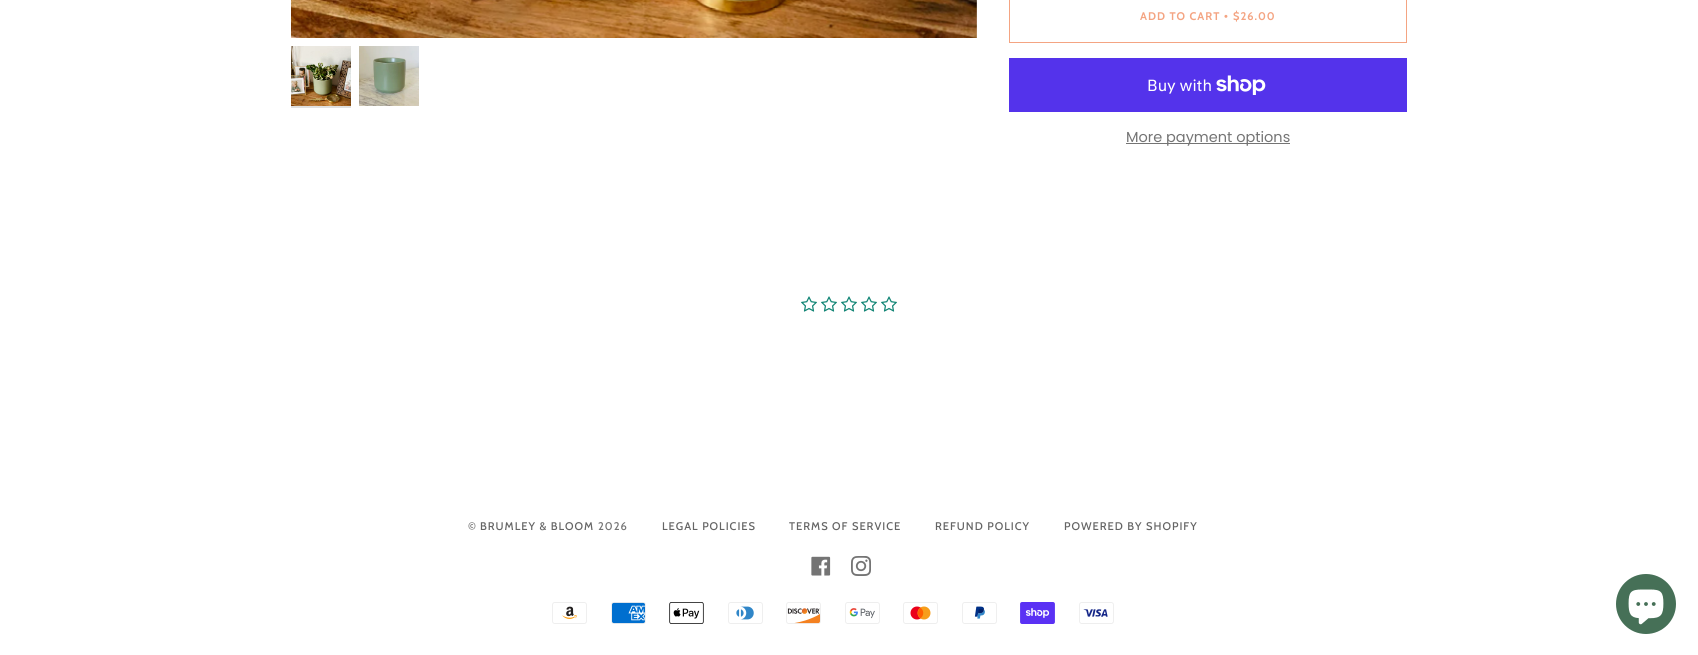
#include <cairo.h>
#include <math.h>
#include <stddef.h>

typedef struct { const char *family; double size; int italic, bold; unsigned color; } style_t;
static cairo_t *ctx;

static void ink(unsigned color) {
    cairo_set_source_rgb(ctx, (color >> 16) / 255.0, (color >> 8 & 255) / 255.0, (color & 255) / 255.0);
}

static void write(double x, double y, const char *s, const style_t *st) {
    cairo_select_font_face(ctx, st->family, st->italic ? CAIRO_FONT_SLANT_ITALIC : CAIRO_FONT_SLANT_NORMAL,
        st->bold ? CAIRO_FONT_WEIGHT_BOLD : CAIRO_FONT_WEIGHT_NORMAL);
    cairo_set_font_size(ctx, st->size);
    ink(st->color);
    cairo_move_to(ctx, x, y);
    cairo_show_text(ctx, s);
}

static void write_spaced(double x, double y, const char *s, double letter, double word) {
    cairo_move_to(ctx, x, y);
    while (*s) {
        char ch[5] = {0};
        int n = 0;
        do ch[n++] = *s++; while ((*s & 0xC0) == 0x80);
        cairo_show_text(ctx, ch);
        cairo_rel_move_to(ctx, letter + word * (*ch == ' '), 0);
    }
}

static void block(double x, double y, double w, double h, unsigned color) {
    ink(color);
    cairo_rectangle(ctx, x, y, w, h);
    cairo_fill(ctx);
}

static void paste(const char *path, double x, double y, double w, double h) {
    cairo_surface_t *image = cairo_image_surface_create_from_png(path);
    cairo_save(ctx);
    cairo_set_source_surface(ctx, image, x, y);
    cairo_rectangle(ctx, x, y, w, h);
    cairo_fill(ctx);
    cairo_restore(ctx);
    cairo_surface_destroy(image);
}

static const style_t s1 = {"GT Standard", 16, 0, 0, 0xffffff};
static const style_t s2 = {"Poppins", 14.5, 0, 0, 0x747474};

int main(void) {
    cairo_surface_t *surface = cairo_image_surface_create(CAIRO_FORMAT_RGB24, 1698, 655);
    ctx = cairo_create(surface);
    cairo_font_options_t *options = cairo_font_options_create();
    cairo_font_options_set_hint_metrics(options, CAIRO_HINT_METRICS_OFF);
    cairo_font_options_set_hint_style(options, CAIRO_HINT_STYLE_NONE);
    cairo_set_font_options(ctx, options);
    cairo_set_miter_limit(ctx, 4);
    ink(0xffffff);
    cairo_paint(ctx);
    paste("pic1.png", 976, 0, 1, 38);
    paste("pic2.png", 291, 0, 686, 38);
    paste("pic3.png", 291, 46, 60, 60);
    block(291, 106, 60, 2, 0xe0e0e0);
    paste("pic4.png", 359, 46, 60, 60);
    cairo_rectangle(ctx, 1009.5, -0.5, 397, 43);
    ink(0xf4a482);
    cairo_set_line_width(ctx, 1);
    cairo_stroke(ctx);
    cairo_select_font_face(ctx, "Cabin", CAIRO_FONT_SLANT_NORMAL, CAIRO_FONT_WEIGHT_BOLD);
    cairo_set_font_size(ctx, 11.1);
    write_spaced(1140, 20, "ADD TO CART", 1, 0);
    cairo_select_font_face(ctx, "Liberation Serif", CAIRO_FONT_SLANT_NORMAL, CAIRO_FONT_WEIGHT_BOLD);
    write_spaced(1224, 20, "•", 1, 0);
    cairo_select_font_face(ctx, "Cabin", CAIRO_FONT_SLANT_NORMAL, CAIRO_FONT_WEIGHT_BOLD);
    write_spaced(1233, 20, "$26.00", 1, 0);
    block(1009, 58, 398, 54, 0x5433eb);
    write(1147, 91, "Buy with", &s1);
    paste("pic5.png", 1216, 75, 50, 20);
    block(1126, 143, 164, 1, 0x747474);
    write(1126, 142, "More payment options", &s2);
    paste("pic6.png", 801, 296, 16, 16);
    paste("pic6.png", 821, 296, 16, 16);
    paste("pic6.png", 841, 296, 16, 16);
    paste("pic6.png", 861, 296, 16, 16);
    paste("pic6.png", 881, 296, 16, 16);
    cairo_select_font_face(ctx, "Cabin Medium", CAIRO_FONT_SLANT_NORMAL, CAIRO_FONT_WEIGHT_NORMAL);
    cairo_set_font_size(ctx, 11.1);
    write_spaced(468, 530, "©", 1, 0);
    ink(0x656565);
    write_spaced(480, 530, "BRUMLEY & BLOOM", 1, 0);
    ink(0x747474);
    write_spaced(598, 530, "2026", 1, 0);
    ink(0x656565);
    write_spaced(662, 530, "LEGAL POLICIES", 1, 0);
    write_spaced(789, 530, "TERMS OF SERVICE", 1, 0);
    write_spaced(935, 530, "REFUND POLICY", 1, 0);
    write_spaced(1064, 530, "POWERED BY SHOPIFY", 1, 0);
    paste("pic7.png", 811, 556, 20, 20);
    paste("pic8.png", 851, 556, 20, 20);
    paste("pic9.png", 552, 602, 35, 22);
    paste("pic10.png", 611, 602, 35, 22);
    paste("pic11.png", 669, 602, 35, 22);
    paste("pic12.png", 728, 602, 35, 22);
    paste("pic13.png", 786, 602, 35, 22);
    paste("pic14.png", 845, 602, 35, 22);
    paste("pic15.png", 903, 602, 35, 22);
    paste("pic16.png", 962, 602, 35, 22);
    paste("pic17.png", 1020, 602, 35, 22);
    paste("pic18.png", 1079, 602, 35, 22);
    ink(0x467057);
    cairo_arc(ctx, 1646, 604, 30, 0, 2 * M_PI);
    cairo_fill(ctx);
    paste("pic19.png", 1628, 589, 36, 36);
    cairo_surface_write_to_png(surface, "screenshot.png");
    cairo_font_options_destroy(options);
    cairo_destroy(ctx);
    cairo_surface_destroy(surface);
    return 0;
}
